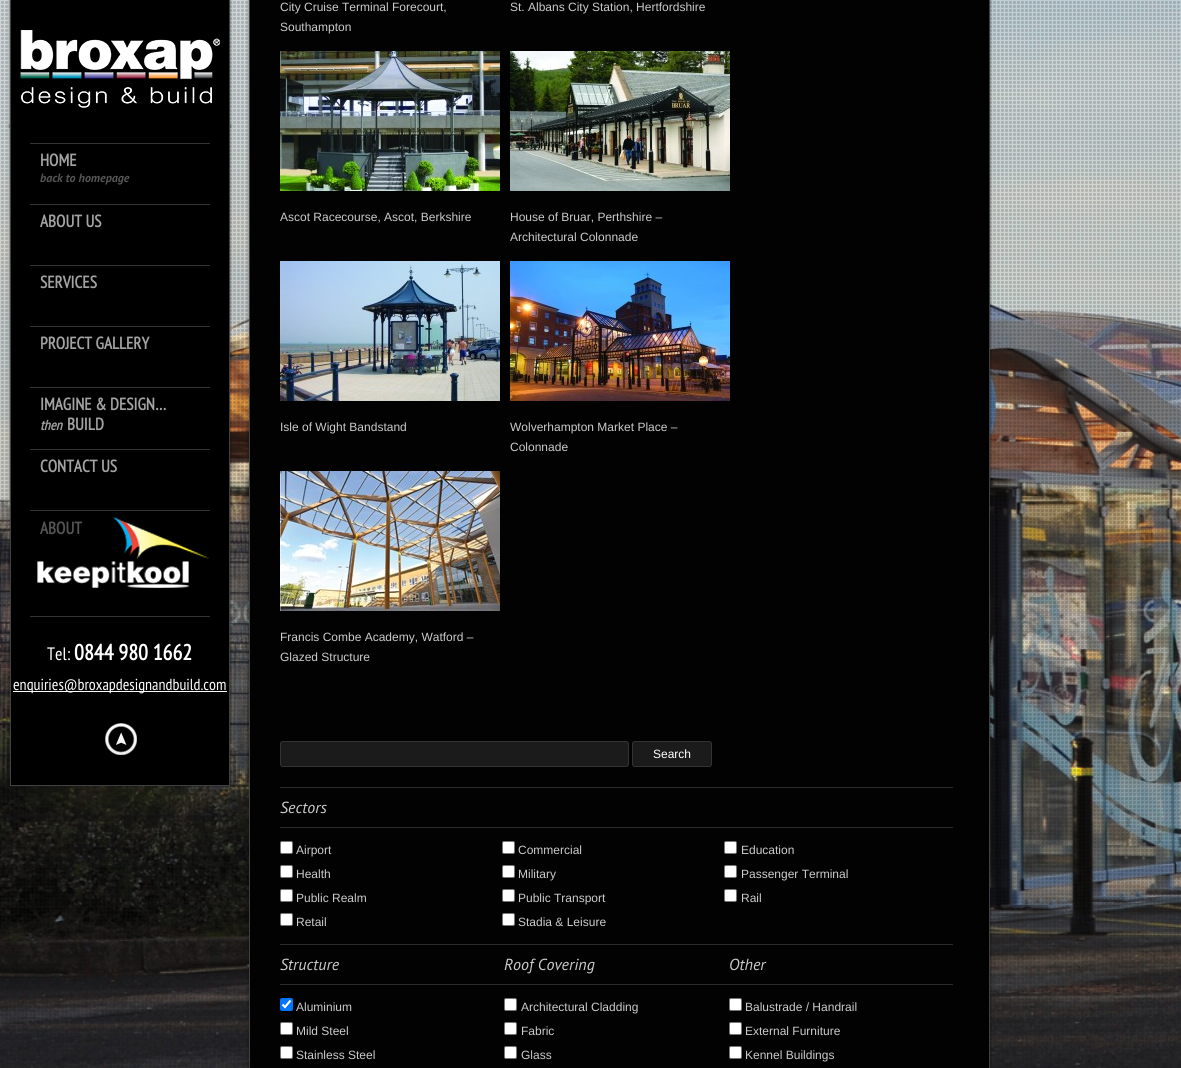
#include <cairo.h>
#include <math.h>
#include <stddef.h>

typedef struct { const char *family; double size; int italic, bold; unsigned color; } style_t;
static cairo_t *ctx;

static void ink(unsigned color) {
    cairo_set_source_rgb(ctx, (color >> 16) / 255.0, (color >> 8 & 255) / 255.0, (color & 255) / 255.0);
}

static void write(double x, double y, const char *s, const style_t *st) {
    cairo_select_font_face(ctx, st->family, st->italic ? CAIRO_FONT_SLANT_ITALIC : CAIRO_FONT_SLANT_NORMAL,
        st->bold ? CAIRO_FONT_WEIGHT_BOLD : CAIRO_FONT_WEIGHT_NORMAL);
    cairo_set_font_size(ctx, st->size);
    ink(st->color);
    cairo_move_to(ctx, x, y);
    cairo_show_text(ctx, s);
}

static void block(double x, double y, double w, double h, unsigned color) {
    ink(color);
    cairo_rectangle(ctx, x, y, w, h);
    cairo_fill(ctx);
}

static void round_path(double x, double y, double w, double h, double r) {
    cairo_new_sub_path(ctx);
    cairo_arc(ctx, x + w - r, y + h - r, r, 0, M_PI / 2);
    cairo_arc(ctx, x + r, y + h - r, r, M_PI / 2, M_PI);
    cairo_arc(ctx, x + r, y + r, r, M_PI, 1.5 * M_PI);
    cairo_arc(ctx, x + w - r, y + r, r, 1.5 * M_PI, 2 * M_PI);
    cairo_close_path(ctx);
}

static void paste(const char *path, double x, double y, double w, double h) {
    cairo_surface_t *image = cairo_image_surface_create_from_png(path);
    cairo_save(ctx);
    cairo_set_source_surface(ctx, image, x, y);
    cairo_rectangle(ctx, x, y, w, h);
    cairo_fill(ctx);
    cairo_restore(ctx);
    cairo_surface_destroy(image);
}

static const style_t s1 = {"Liberation Sans", 12, 0, 0, 0xcccccc};
static const style_t s2 = {"Liberation Sans", 12, 0, 0, 0xffffff};
static const style_t s3 = {"PT Sans", 16, 1, 0, 0xcccccc};
static const style_t s4 = {"PT Sans Narrow", 17, 0, 1, 0xa3a3a3};
static const style_t s5 = {"PT Sans", 12, 1, 1, 0x555555};
static const style_t s6 = {"PT Sans Narrow", 14, 1, 1, 0xa3a3a3};
static const style_t s7 = {"PT Sans Narrow", 17, 0, 1, 0x555555};
static const style_t s8 = {"PT Sans Narrow", 18, 0, 0, 0xffffff};
static const style_t s9 = {"PT Sans Narrow", 22, 0, 1, 0xffffff};
static const style_t s10 = {"PT Sans Narrow", 16, 0, 0, 0xffffff};

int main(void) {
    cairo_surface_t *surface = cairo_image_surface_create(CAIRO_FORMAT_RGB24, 1181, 1068);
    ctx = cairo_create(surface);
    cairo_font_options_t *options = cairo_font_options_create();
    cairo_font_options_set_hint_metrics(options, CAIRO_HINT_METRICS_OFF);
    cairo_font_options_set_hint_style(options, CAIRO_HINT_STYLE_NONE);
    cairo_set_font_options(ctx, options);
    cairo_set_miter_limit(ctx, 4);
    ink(0xffffff);
    cairo_paint(ctx);
    paste("pic1.png", 0, 0, 1181, 1068);
    paste("pic2.png", 0, 0, 1181, 1068);
    paste("pic11.png", 7, 124, 226, 513);
    paste("pic3.png", 7, 0, 226, 128);
    paste("pic4.png", 20, 30, 200, 78);
    paste("pic5.png", 246, 0, 747, 1068);
    write(280, 11, "City Cruise Terminal Forecourt,", &s1);
    write(280, 31, "Southampton", &s1);
    write(510, 11, "St. Albans City Station, Hertfordshire", &s1);
    paste("pic6.png", 280, 51, 220, 140);
    write(280, 221, "Ascot Racecourse, Ascot, Berkshire", &s1);
    paste("pic7.png", 510, 51, 220, 140);
    write(510, 221, "House of Bruar, Perthshire –", &s1);
    write(510, 241, "Architectural Colonnade", &s1);
    paste("pic8.png", 280, 261, 220, 140);
    write(280, 431, "Isle of Wight Bandstand", &s1);
    paste("pic9.png", 510, 261, 220, 140);
    write(510, 431, "Wolverhampton Market Place –", &s1);
    write(510, 451, "Colonnade", &s1);
    paste("pic10.png", 280, 471, 220, 140);
    write(280, 641, "Francis Combe Academy, Watford –", &s1);
    write(280, 661, "Glazed Structure", &s1);
    ink(0x1b1b1b);
    round_path(280.5, 741.5, 348, 25, 2.5);
    cairo_fill_preserve(ctx);
    ink(0x333333);
    cairo_set_line_width(ctx, 1);
    cairo_stroke(ctx);
    ink(0x1b1b1b);
    round_path(632.5, 741.5, 79, 25, 2.5);
    cairo_fill_preserve(ctx);
    ink(0x333333);
    cairo_stroke(ctx);
    write(653, 758, "Search", &s2);
    block(280, 944, 673, 1, 0x2b2b2b);
    block(280, 787, 673, 1, 0x2b2b2b);
    block(280, 827, 673, 1, 0x2b2b2b);
    write(280, 813, "Sectors", &s3);
    ink(0xffffff);
    round_path(280.5, 841.5, 12, 12, 1.5);
    cairo_fill_preserve(ctx);
    ink(0x767676);
    cairo_stroke(ctx);
    write(296, 854, "Airport", &s1);
    ink(0xffffff);
    round_path(502.5, 841.5, 12, 12, 1.5);
    cairo_fill_preserve(ctx);
    ink(0x767676);
    cairo_stroke(ctx);
    write(518, 854, "Commercial", &s1);
    ink(0xffffff);
    round_path(724.5, 841.5, 12, 12, 1.5);
    cairo_fill_preserve(ctx);
    ink(0x767676);
    cairo_stroke(ctx);
    write(741, 854, "Education", &s1);
    ink(0xffffff);
    round_path(280.5, 865.5, 12, 12, 1.5);
    cairo_fill_preserve(ctx);
    ink(0x767676);
    cairo_stroke(ctx);
    write(296, 878, "Health", &s1);
    ink(0xffffff);
    round_path(502.5, 865.5, 12, 12, 1.5);
    cairo_fill_preserve(ctx);
    ink(0x767676);
    cairo_stroke(ctx);
    write(518, 878, "Military", &s1);
    ink(0xffffff);
    round_path(724.5, 865.5, 12, 12, 1.5);
    cairo_fill_preserve(ctx);
    ink(0x767676);
    cairo_stroke(ctx);
    write(741, 878, "Passenger Terminal", &s1);
    ink(0xffffff);
    round_path(280.5, 889.5, 12, 12, 1.5);
    cairo_fill_preserve(ctx);
    ink(0x767676);
    cairo_stroke(ctx);
    write(296, 902, "Public Realm", &s1);
    ink(0xffffff);
    round_path(502.5, 889.5, 12, 12, 1.5);
    cairo_fill_preserve(ctx);
    ink(0x767676);
    cairo_stroke(ctx);
    write(518, 902, "Public Transport", &s1);
    ink(0xffffff);
    round_path(724.5, 889.5, 12, 12, 1.5);
    cairo_fill_preserve(ctx);
    ink(0x767676);
    cairo_stroke(ctx);
    write(741, 902, "Rail", &s1);
    ink(0xffffff);
    round_path(280.5, 913.5, 12, 12, 1.5);
    cairo_fill_preserve(ctx);
    ink(0x767676);
    cairo_stroke(ctx);
    write(296, 926, "Retail", &s1);
    ink(0xffffff);
    round_path(502.5, 913.5, 12, 12, 1.5);
    cairo_fill_preserve(ctx);
    ink(0x767676);
    cairo_stroke(ctx);
    write(518, 926, "Stadia & Leisure", &s1);
    block(280, 984, 673, 1, 0x2b2b2b);
    write(280, 970, "Structure", &s3);
    ink(0x0075ff);
    round_path(280, 998, 13, 13, 2);
    cairo_fill(ctx);
    cairo_new_path(ctx);
    cairo_move_to(ctx, 282.5, 1004.5);
    cairo_line_to(ctx, 285, 1007);
    cairo_line_to(ctx, 290.5, 1000.5);
    ink(0xffffff);
    cairo_set_line_width(ctx, 2.1);
    cairo_stroke(ctx);
    write(296, 1011, "Aluminium", &s1);
    ink(0xffffff);
    round_path(280.5, 1022.5, 12, 12, 1.5);
    cairo_fill_preserve(ctx);
    ink(0x767676);
    cairo_set_line_width(ctx, 1);
    cairo_stroke(ctx);
    write(296, 1035, "Mild Steel", &s1);
    ink(0xffffff);
    round_path(280.5, 1046.5, 12, 12, 1.5);
    cairo_fill_preserve(ctx);
    ink(0x767676);
    cairo_stroke(ctx);
    write(296, 1059, "Stainless Steel", &s1);
    write(504, 970, "Roof Covering", &s3);
    ink(0xffffff);
    round_path(504.5, 998.5, 12, 12, 1.5);
    cairo_fill_preserve(ctx);
    ink(0x767676);
    cairo_stroke(ctx);
    write(521, 1011, "Architectural Cladding", &s1);
    ink(0xffffff);
    round_path(504.5, 1022.5, 12, 12, 1.5);
    cairo_fill_preserve(ctx);
    ink(0x767676);
    cairo_stroke(ctx);
    write(521, 1035, "Fabric", &s1);
    ink(0xffffff);
    round_path(504.5, 1046.5, 12, 12, 1.5);
    cairo_fill_preserve(ctx);
    ink(0x767676);
    cairo_stroke(ctx);
    write(521, 1059, "Glass", &s1);
    write(729, 970, "Other", &s3);
    ink(0xffffff);
    round_path(729.5, 998.5, 12, 12, 1.5);
    cairo_fill_preserve(ctx);
    ink(0x767676);
    cairo_stroke(ctx);
    write(745, 1011, "Balustrade / Handrail", &s1);
    ink(0xffffff);
    round_path(729.5, 1022.5, 12, 12, 1.5);
    cairo_fill_preserve(ctx);
    ink(0x767676);
    cairo_stroke(ctx);
    write(745, 1035, "External Furniture", &s1);
    ink(0xffffff);
    round_path(729.5, 1046.5, 12, 12, 1.5);
    cairo_fill_preserve(ctx);
    ink(0x767676);
    cairo_stroke(ctx);
    write(745, 1059, "Kennel Buildings", &s1);
    block(30, 143, 180, 1, 0x343434);
    block(30, 204, 180, 1, 0x343434);
    write(40, 166, "HOME", &s4);
    write(40, 182, "back to homepage", &s5);
    block(30, 265, 180, 1, 0x343434);
    write(40, 227, "ABOUT US", &s4);
    block(30, 326, 180, 1, 0x343434);
    write(40, 288, "SERVICES", &s4);
    block(30, 387, 180, 1, 0x343434);
    write(40, 349, "PROJECT GALLERY", &s4);
    block(30, 449, 180, 1, 0x343434);
    write(40, 410, "IMAGINE & DESIGN…", &s4);
    write(40, 430, "then", &s6);
    write(67, 430, "BUILD", &s4);
    block(30, 510, 180, 1, 0x343434);
    write(40, 472, "CONTACT US", &s4);
    block(30, 616, 180, 1, 0x343434);
    write(40, 534, "ABOUT", &s7);
    paste("pic12.png", 37, 517, 172, 71);
    paste("pic13.png", 8, 637, 225, 73);
    write(47, 660, "Tel:", &s8);
    write(74, 660, "0844 980 1662", &s9);
    block(13, 691, 214, 1, 0xffffff);
    write(13, 690, "enquiries@broxapdesignandbuild.com", &s10);
    paste("pic14.png", 8, 710, 225, 76);
    paste("pic15.png", 105, 723, 32, 33);
    cairo_surface_write_to_png(surface, "screenshot.png");
    cairo_font_options_destroy(options);
    cairo_destroy(ctx);
    cairo_surface_destroy(surface);
    return 0;
}
